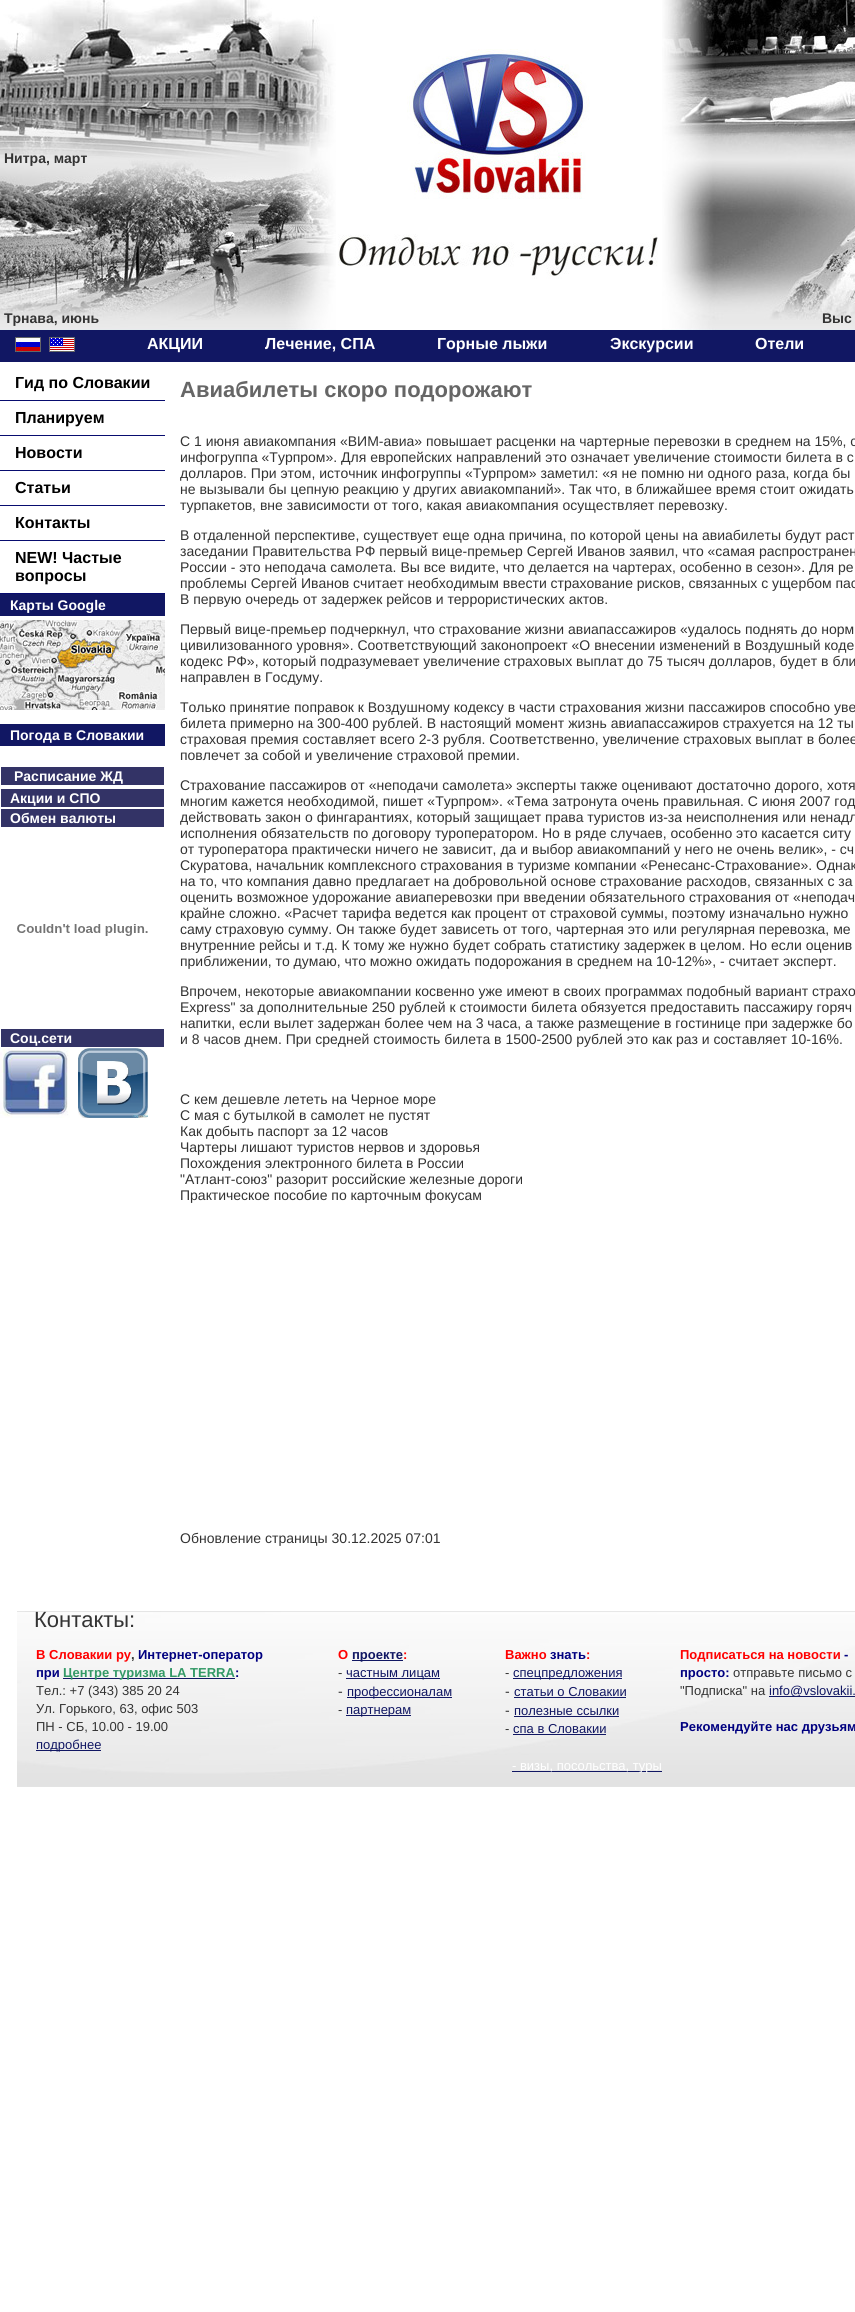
#include <cairo.h>
#include <math.h>
#include <stddef.h>

typedef struct { const char *family; double size; int italic, bold; unsigned color; } style_t;
static cairo_t *ctx;

static void ink(unsigned color) {
    cairo_set_source_rgb(ctx, (color >> 16) / 255.0, (color >> 8 & 255) / 255.0, (color & 255) / 255.0);
}

static void write(double x, double y, const char *s, const style_t *st) {
    cairo_select_font_face(ctx, st->family, st->italic ? CAIRO_FONT_SLANT_ITALIC : CAIRO_FONT_SLANT_NORMAL,
        st->bold ? CAIRO_FONT_WEIGHT_BOLD : CAIRO_FONT_WEIGHT_NORMAL);
    cairo_set_font_size(ctx, st->size);
    ink(st->color);
    cairo_move_to(ctx, x, y);
    cairo_show_text(ctx, s);
}

static void block(double x, double y, double w, double h, unsigned color) {
    ink(color);
    cairo_rectangle(ctx, x, y, w, h);
    cairo_fill(ctx);
}

static void paste(const char *path, double x, double y, double w, double h) {
    cairo_surface_t *image = cairo_image_surface_create_from_png(path);
    cairo_save(ctx);
    cairo_set_source_surface(ctx, image, x, y);
    cairo_rectangle(ctx, x, y, w, h);
    cairo_fill(ctx);
    cairo_restore(ctx);
    cairo_surface_destroy(image);
}

static const style_t s1 = {"Liberation Sans", 14, 0, 1, 0x333333};
static const style_t s2 = {"Liberation Sans", 16, 0, 1, 0xffffff};
static const style_t s3 = {"Liberation Sans", 16, 0, 1, 0x000000};
static const style_t s4 = {"Liberation Sans", 14, 0, 1, 0xffffff};
static const style_t s5 = {"Liberation Sans", 22, 0, 1, 0x666666};
static const style_t s6 = {"Liberation Sans", 14, 0, 0, 0x333333};
static const style_t s7 = {"Liberation Sans", 22, 0, 0, 0x333333};
static const style_t s8 = {"Liberation Sans", 13, 0, 1, 0xff0000};
static const style_t s9 = {"Liberation Sans", 13, 0, 1, 0x333333};
static const style_t s10 = {"Liberation Sans", 13, 0, 1, 0x000080};
static const style_t s11 = {"Liberation Sans", 13, 0, 1, 0x339966};
static const style_t s12 = {"Liberation Sans", 13, 0, 0, 0x333333};
static const style_t s13 = {"Liberation Sans", 13, 0, 0, 0x111763};
static const style_t s14 = {"Liberation Sans", 13, 0, 1, 0x111763};
static const style_t s15 = {"Liberation Sans", 13, 0, 0, 0xffffff};

int main(void) {
    cairo_surface_t *surface = cairo_image_surface_create(CAIRO_FORMAT_RGB24, 855, 2312);
    ctx = cairo_create(surface);
    cairo_font_options_t *options = cairo_font_options_create();
    cairo_font_options_set_hint_metrics(options, CAIRO_HINT_METRICS_OFF);
    cairo_font_options_set_hint_style(options, CAIRO_HINT_STYLE_NONE);
    cairo_set_font_options(ctx, options);
    cairo_set_miter_limit(ctx, 4);
    ink(0xffffff);
    cairo_paint(ctx);
    paste("pic1.png", 0, 0, 336, 330);
    write(4, 163, "Нитра, март", &s1);
    write(4, 323, "Трнава, июнь", &s1);
    paste("pic2.png", 407, 49, 183, 150);
    paste("pic3.png", 338, 234, 320, 45);
    paste("pic4.png", 662, 0, 193, 330);
    write(822, 323, "Выс", &s1);
    block(0, 330, 855, 32, 0x111763);
    paste("pic5.png", 15, 337, 26, 15);
    paste("pic6.png", 49, 337, 26, 15);
    write(147, 349, "АКЦИИ", &s2);
    write(265, 349, "Лечение, СПА", &s2);
    write(437, 349, "Горные лыжи", &s2);
    write(610, 349, "Экскурсии", &s2);
    write(755, 349, "Отели", &s2);
    block(0, 400, 165, 1, 0x080c6f);
    write(15, 388, "Гид по Словакии", &s3);
    block(0, 435, 165, 1, 0x080c6f);
    write(15, 423, "Планируем", &s3);
    block(0, 470, 165, 1, 0x080c6f);
    write(15, 458, "Новости", &s3);
    block(0, 505, 165, 1, 0x080c6f);
    write(15, 493, "Статьи", &s3);
    block(0, 540, 165, 1, 0x080c6f);
    write(15, 528, "Контакты", &s3);
    block(0, 593, 165, 1, 0x080c6f);
    write(15, 563, "NEW! Частые", &s3);
    write(15, 581, "вопросы", &s3);
    block(0, 594, 165, 22, 0x111763);
    write(10, 610, "Карты Google", &s4);
    paste("pic7.png", 0, 620, 165, 90);
    block(0, 724, 165, 22, 0x111763);
    write(10, 740, "Погода в Словакии", &s4);
    block(1, 767, 163, 18, 0x333366);
    write(14, 781, "Расписание ЖД", &s4);
    block(1, 789, 163, 18, 0x333366);
    write(10, 803, "Акции и СПО", &s4);
    block(1, 809, 163, 18, 0x333366);
    write(10, 823, "Обмен валюты", &s4);
    paste("pic8.png", 17, 924, 131, 12);
    block(1, 1029, 163, 18, 0x333366);
    write(10, 1043, "Соц.сети", &s4);
    paste("pic9.png", 0, 1048, 70, 70);
    paste("pic10.png", 78, 1048, 70, 70);
    write(180, 397, "Авиабилеты скоро подорожают", &s5);
    write(180, 446, "С 1 июня авиакомпания «ВИМ-авиа» повышает расценки на чартерные перевозки в среднем на 15%, с", &s6);
    write(180, 462, "инфогруппа «Турпром». Для европейских направлений это означает увеличение стоимости билета в с", &s6);
    write(180, 478, "долларов. При этом, источник инфогруппы «Турпром» заметил: «я не помню ни одного раза, когда бы", &s6);
    write(180, 494, "не вызывали бы цепную реакцию у других авиакомпаний». Так что, в ближайшее время стоит ожидать", &s6);
    write(180, 510, "турпакетов, вне зависимости от того, какая авиакомпания осуществляет перевозку.", &s6);
    write(180, 540, "В отдаленной перспективе, существует еще одна причина, по которой цены на авиабилеты будут раст", &s6);
    write(180, 556, "заседании Правительства РФ первый вице-премьер Сергей Иванов заявил, что «самая распространен", &s6);
    write(180, 572, "России - это неподача самолета. Вы все видите, что делается на чартерах, особенно в сезон». Для ре", &s6);
    write(180, 588, "проблемы Сергей Иванов считает необходимым ввести страхование рисков, связанных с ущербом пас", &s6);
    write(180, 604, "В первую очередь от задержек рейсов и террористических актов.", &s6);
    write(180, 634, "Первый вице-премьер подчеркнул, что страхование жизни авиапассажиров «удалось поднять до норм", &s6);
    write(180, 650, "цивилизованного уровня». Соответствующий законопроект «О внесении изменений в Воздушный коде", &s6);
    write(180, 666, "кодекс РФ», который подразумевает увеличение страховых выплат до 75 тысяч долларов, будет в бли", &s6);
    write(180, 682, "направлен в Госдуму.", &s6);
    write(180, 712, "Только принятие поправок к Воздушному кодексу в части страхования жизни пассажиров способно уве", &s6);
    write(180, 728, "билета примерно на 300-400 рублей. В настоящий момент жизнь авиапассажиров страхуется на 12 ты", &s6);
    write(180, 744, "страховая премия составляет всего 2-3 рубля. Соответственно, увеличение страховых выплат в более", &s6);
    write(180, 760, "повлечет за собой и увеличение страховой премии.", &s6);
    write(180, 790, "Страхование пассажиров от «неподачи самолета» эксперты также оценивают достаточно дорого, хотя", &s6);
    write(180, 806, "многим кажется необходимой, пишет «Турпром». «Тема затронута очень правильная. С июня 2007 год", &s6);
    write(180, 822, "действовать закон о фингарантиях, который защищает права туристов из-за неисполнения или ненадл", &s6);
    write(180, 838, "исполнения обязательств по договору туроператором. Но в ряде случаев, особенно это касается ситу", &s6);
    write(180, 854, "от туроператора практически ничего не зависит, да и выбор авиакомпаний у него не очень велик», - сч", &s6);
    write(180, 870, "Скуратова, начальник комплексного страхования в туризме компании «Ренесанс-Страхование». Однак", &s6);
    write(180, 886, "на то, что компания давно предлагает на добровольной основе страхование расходов, связанных с за", &s6);
    write(180, 902, "оценить возможное удорожание авиаперевозки при введении обязательного страхования от «неподач", &s6);
    write(180, 918, "крайне сложно. «Расчет тарифа ведется как процент от страховой суммы, поэтому изначально нужно", &s6);
    write(180, 934, "саму страховую сумму. Он также будет зависеть от того, чартерная это или регулярная перевозка, ме", &s6);
    write(180, 950, "внутренние рейсы и т.д. К тому же нужно будет собрать статистику задержек в целом. Но если оценив", &s6);
    write(180, 966, "приближении, то думаю, что можно ожидать подорожания в среднем на 10-12%», - считает эксперт.", &s6);
    write(180, 996, "Впрочем, некоторые авиакомпании косвенно уже имеют в своих программах подобный вариант страхо", &s6);
    write(180, 1012, "Express\" за дополнительные 250 рублей к стоимости билета обязуется предоставить пассажиру горяч", &s6);
    write(180, 1028, "напитки, если вылет задержан более чем на 3 часа, а также размещение в гостинице при задержке бо", &s6);
    write(180, 1044, "и 8 часов днем. При средней стоимость билета в 1500-2500 рублей это как раз и составляет 10-16%.", &s6);
    write(180, 1104, "С кем дешевле лететь на Черное море", &s6);
    write(180, 1120, "С мая с бутылкой в самолет не пустят", &s6);
    write(180, 1136, "Как добыть паспорт за 12 часов", &s6);
    write(180, 1152, "Чартеры лишают туристов нервов и здоровья", &s6);
    write(180, 1168, "Похождения электронного билета в России", &s6);
    write(180, 1184, "\"Атлант-союз\" разорит российские железные дороги", &s6);
    write(180, 1200, "Практическое пособие по карточным фокусам", &s6);
    write(180, 1543, "Обновление страницы 30.12.2025 07:01", &s6);
    paste("pic11.png", 17, 1611, 838, 176);
    write(34, 1627, "Контакты:", &s7);
    write(36, 1659, "В Словакии ру", &s8);
    write(131, 1659, ",", &s9);
    write(138, 1659, "Интернет-оператор", &s10);
    write(36, 1677, "при", &s10);
    block(63, 1678, 172, 1, 0x111763);
    write(63, 1677, "Центре туризма LA TERRA", &s11);
    write(235, 1677, ":", &s10);
    write(36, 1695, "Тел.: +7 (343) 385 20 24", &s12);
    write(36, 1713, "Ул. Горького, 63, офис 503", &s12);
    write(36, 1731, "ПН - СБ, 10.00 - 19.00", &s12);
    block(36, 1750, 65, 1, 0x111763);
    write(36, 1749, "подробнее", &s13);
    write(338, 1659, "О", &s8);
    block(352, 1660, 51, 1, 0x111763);
    write(352, 1659, "проекте", &s14);
    write(403, 1659, ":", &s8);
    write(338, 1677, "-", &s12);
    block(346, 1678, 94, 1, 0x111763);
    write(346, 1677, "частным лицам", &s13);
    write(338, 1696, "-", &s6);
    block(347, 1697, 105, 1, 0x111763);
    write(347, 1696, "профессионалам", &s13);
    write(338, 1714, "-", &s12);
    block(346, 1715, 65, 1, 0x111763);
    write(346, 1714, "партнерам", &s13);
    write(505, 1659, "Важно", &s8);
    write(550, 1659, "знать", &s10);
    write(586, 1659, ":", &s8);
    write(505, 1677, "-", &s12);
    block(513, 1678, 109, 1, 0x111763);
    write(513, 1677, "спецпредложения", &s13);
    write(505, 1696, "-", &s6);
    write(514, 1696, "статьи о Словакии", &s13);
    block(514, 1697, 112, 1, 0x111763);
    write(505, 1715, "-", &s6);
    write(514, 1715, "полезные ссылки", &s13);
    block(514, 1716, 105, 1, 0x111763);
    write(505, 1733, "-", &s12);
    write(513, 1733, "спа в Словакии", &s13);
    block(513, 1734, 93, 1, 0x111763);
    block(512, 1771, 150, 1, 0x111763);
    write(512, 1770, "- визы, посольства, туры", &s15);
    write(680, 1659, "Подписаться на новости", &s8);
    write(844, 1659, "-", &s10);
    write(680, 1677, "просто:", &s10);
    write(733, 1677, "отправьте письмо с", &s12);
    write(680, 1695, "\"Подписка\" на", &s12);
    block(769, 1696, 86, 1, 0x111763);
    write(769, 1695, "info@vslovakii.", &s13);
    write(680, 1731, "Рекомендуйте нас друзьям", &s10);
    cairo_surface_write_to_png(surface, "screenshot.png");
    cairo_font_options_destroy(options);
    cairo_destroy(ctx);
    cairo_surface_destroy(surface);
    return 0;
}
